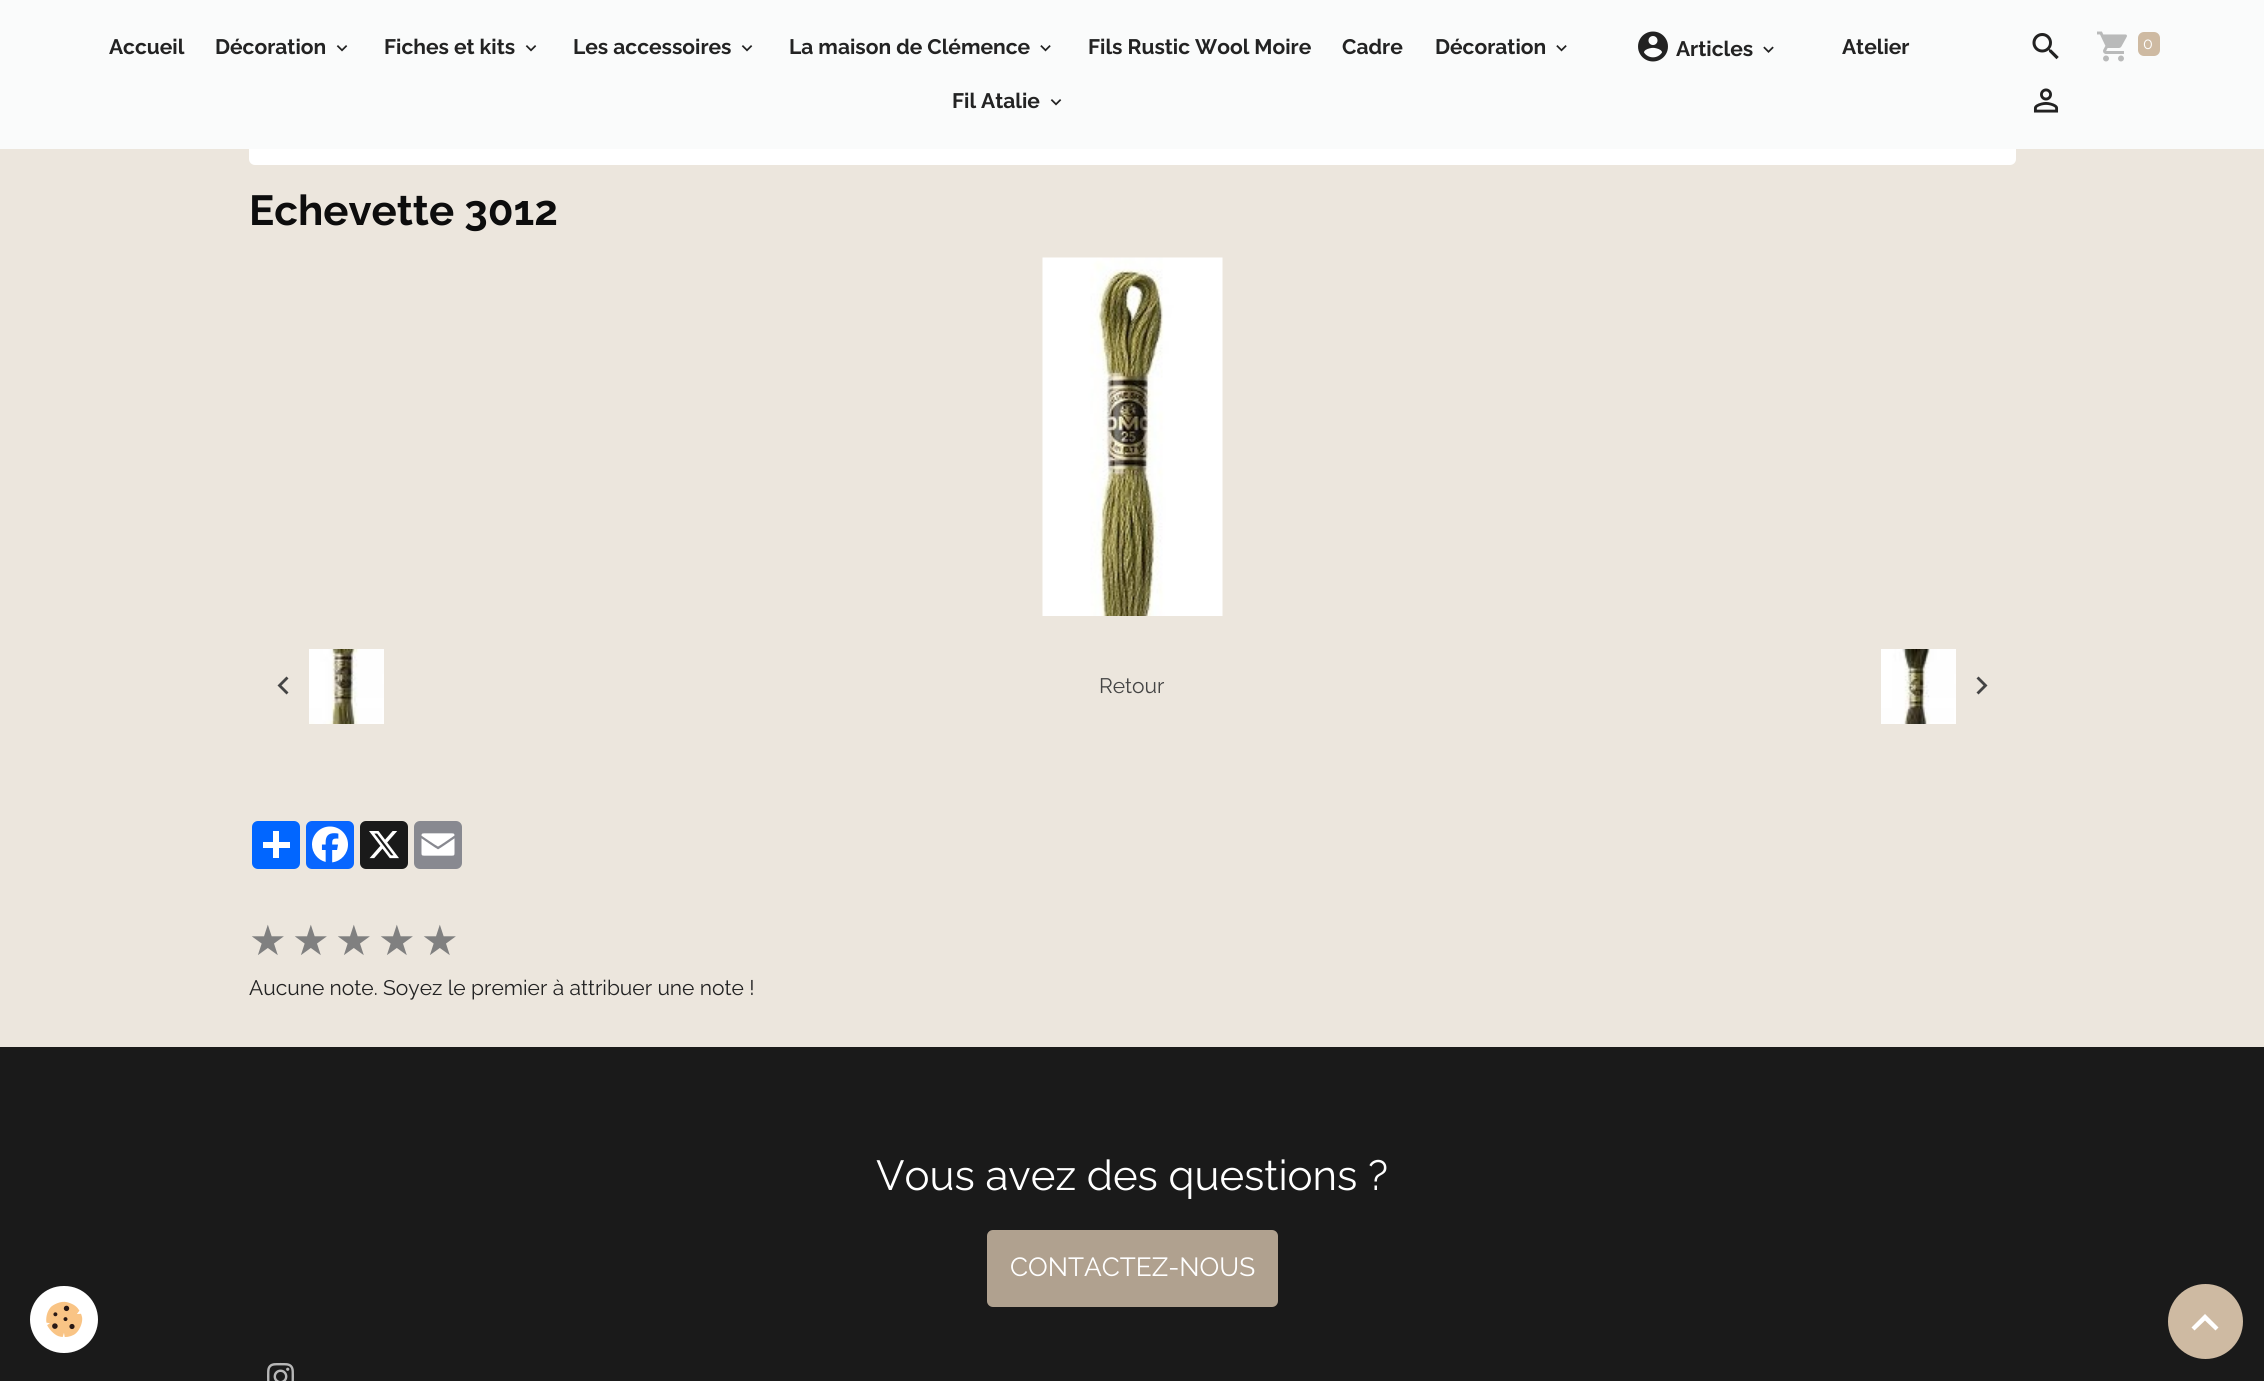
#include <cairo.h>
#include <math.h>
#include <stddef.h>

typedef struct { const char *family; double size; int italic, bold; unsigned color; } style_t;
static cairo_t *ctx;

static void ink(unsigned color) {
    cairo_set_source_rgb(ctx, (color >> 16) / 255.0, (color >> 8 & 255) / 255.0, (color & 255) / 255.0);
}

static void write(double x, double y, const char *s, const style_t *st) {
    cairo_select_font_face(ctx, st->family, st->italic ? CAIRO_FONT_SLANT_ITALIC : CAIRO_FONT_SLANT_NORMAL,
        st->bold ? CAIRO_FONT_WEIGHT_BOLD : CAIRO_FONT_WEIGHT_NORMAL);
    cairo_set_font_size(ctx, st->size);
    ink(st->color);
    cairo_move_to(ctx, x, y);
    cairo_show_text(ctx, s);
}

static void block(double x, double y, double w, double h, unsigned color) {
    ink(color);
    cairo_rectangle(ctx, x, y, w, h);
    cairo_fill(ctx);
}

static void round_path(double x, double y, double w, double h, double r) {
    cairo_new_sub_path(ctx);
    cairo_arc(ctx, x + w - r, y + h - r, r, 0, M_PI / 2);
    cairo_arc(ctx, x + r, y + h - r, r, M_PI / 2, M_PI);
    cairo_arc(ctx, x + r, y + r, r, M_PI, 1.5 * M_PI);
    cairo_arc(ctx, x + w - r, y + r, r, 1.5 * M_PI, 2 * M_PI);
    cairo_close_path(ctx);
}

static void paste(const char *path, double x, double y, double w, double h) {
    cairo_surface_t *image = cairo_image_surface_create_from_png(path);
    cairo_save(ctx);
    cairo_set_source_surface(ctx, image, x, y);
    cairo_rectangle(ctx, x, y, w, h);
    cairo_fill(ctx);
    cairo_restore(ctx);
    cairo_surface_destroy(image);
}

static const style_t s1 = {"Raleway", 21, 0, 1, 0x232323};
static const style_t s2 = {"Raleway", 16, 0, 0, 0xffffff};
static const style_t s3 = {"Raleway", 42, 0, 1, 0x0d0d0d};
static const style_t s4 = {"Raleway", 21, 0, 0, 0x444444};
static const style_t s5 = {"DejaVu Sans", 42, 0, 0, 0x808080};
static const style_t s6 = {"Raleway", 21, 0, 0, 0x232323};
static const style_t s7 = {"Raleway", 42, 0, 0, 0xffffff};
static const style_t s8 = {"Raleway", 26.25, 0, 0, 0xffffff};

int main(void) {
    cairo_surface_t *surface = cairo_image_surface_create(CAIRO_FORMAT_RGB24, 2264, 1381);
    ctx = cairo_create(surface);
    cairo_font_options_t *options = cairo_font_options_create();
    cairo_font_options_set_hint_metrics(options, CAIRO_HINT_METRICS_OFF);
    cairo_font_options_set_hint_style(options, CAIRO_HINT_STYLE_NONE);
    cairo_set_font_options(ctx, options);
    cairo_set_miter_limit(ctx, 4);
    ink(0xece6dd);
    cairo_paint(ctx);
    ink(0xffffff);
    round_path(249, 102, 1767, 63, 6);
    cairo_fill(ctx);
    block(0, 0, 2264, 149, 0xfafbfb);
    write(109, 54, "Accueil", &s1);
    write(215, 54, "Décoration", &s1);
    paste("pic1.png", 336, 45, 12, 7);
    write(384, 54, "Fiches et kits", &s1);
    paste("pic1.png", 525, 45, 12, 7);
    write(573, 54, "Les accessoires", &s1);
    paste("pic1.png", 741, 45, 12, 7);
    write(789, 54, "La maison de Clémence", &s1);
    paste("pic2.png", 1040, 45, 11, 7);
    write(1088, 54, "Fils Rustic Wool Moire", &s1);
    write(1342, 54, "Cadre", &s1);
    write(1435, 54, "Décoration", &s1);
    paste("pic2.png", 1556, 45, 11, 7);
    paste("pic3.png", 1638, 31, 30, 31);
    write(1676, 56, "Articles", &s1);
    paste("pic4.png", 1763, 46, 11, 7);
    write(1842, 54, "Atelier", &s1);
    write(952, 108, "Fil Atalie", &s1);
    paste("pic1.png", 1050, 99, 12, 7);
    paste("pic5.png", 2032, 33, 27, 27);
    paste("pic6.png", 2097, 31, 30, 31);
    ink(0xcebaa2);
    round_path(2138, 32, 22, 24, 6);
    cairo_fill(ctx);
    write(2143, 49, "0", &s2);
    paste("pic7.png", 2033, 88, 26, 25);
    write(249, 225, "Echevette 3012", &s3);
    paste("pic8.png", 1042, 257, 181, 359);
    ink(0x444444);
    cairo_new_path(ctx);
    cairo_move_to(ctx, 288.5, 678.5);
    cairo_line_to(ctx, 281.5, 685.5);
    cairo_line_to(ctx, 288.5, 692.5);
    cairo_line_to(ctx, 286.5, 694.5);
    cairo_line_to(ctx, 277.5, 685.5);
    cairo_line_to(ctx, 286.5, 676.5);
    cairo_close_path(ctx);
    cairo_fill(ctx);
    paste("pic9.png", 309, 649, 75, 75);
    write(1099, 693, "Retour", &s4);
    paste("pic10.png", 1881, 649, 75, 75);
    cairo_new_path(ctx);
    cairo_move_to(ctx, 1978.5, 676.5);
    cairo_line_to(ctx, 1987.5, 685.5);
    cairo_line_to(ctx, 1978.5, 694.5);
    cairo_line_to(ctx, 1976.5, 692.5);
    cairo_line_to(ctx, 1983.5, 685.5);
    cairo_line_to(ctx, 1976.5, 678.5);
    cairo_close_path(ctx);
    cairo_fill(ctx);
    ink(0x0166ff);
    round_path(252, 821, 48, 48, 6);
    cairo_fill(ctx);
    block(273, 831, 6, 27, 0xffffff);
    block(263, 842, 27, 6, 0xffffff);
    ink(0x0866ff);
    round_path(306, 821, 48, 48, 6);
    cairo_fill(ctx);
    paste("pic11.png", 312, 826, 36, 37);
    ink(0x1a1a1a);
    round_path(360, 821, 48, 48, 6);
    cairo_fill(ctx);
    paste("pic12.png", 369, 831, 30, 28);
    ink(0x888990);
    round_path(414, 821, 48, 48, 6);
    cairo_fill(ctx);
    paste("pic13.png", 421, 833, 34, 23);
    write(249, 955, "★", &s5);
    write(292, 955, "★", &s5);
    write(335, 955, "★", &s5);
    write(378, 955, "★", &s5);
    write(421, 955, "★", &s5);
    write(249, 995, "Aucune note. Soyez le premier à attribuer une note !", &s6);
    block(0, 1047, 2264, 334, 0x1a1a1a);
    write(876, 1190, "Vous avez des questions ?", &s7);
    ink(0xb0a18f);
    round_path(987, 1230, 291, 77, 6);
    cairo_fill(ctx);
    write(1010, 1276, "CONTACTEZ-NOUS", &s8);
    paste("pic14.png", 267, 1362, 27, 19);
    round_path(30, 1286, 68, 67, 33.5);
    cairo_fill(ctx);
    paste("pic15.png", 46, 1301, 37, 36);
    ink(0xcebaa2);
    cairo_arc(ctx, 2205.5, 1321.5, 37.5, 0, 2 * M_PI);
    cairo_fill(ctx);
    ink(0xffffff);
    cairo_new_path(ctx);
    cairo_move_to(ctx, 2205, 1314);
    cairo_line_to(ctx, 2218.5, 1327.5);
    cairo_line_to(ctx, 2215.5, 1330.5);
    cairo_line_to(ctx, 2205, 1320.5);
    cairo_line_to(ctx, 2194.5, 1330.5);
    cairo_line_to(ctx, 2191.5, 1327.5);
    cairo_close_path(ctx);
    cairo_fill(ctx);
    cairo_surface_write_to_png(surface, "screenshot.png");
    cairo_font_options_destroy(options);
    cairo_destroy(ctx);
    cairo_surface_destroy(surface);
    return 0;
}
